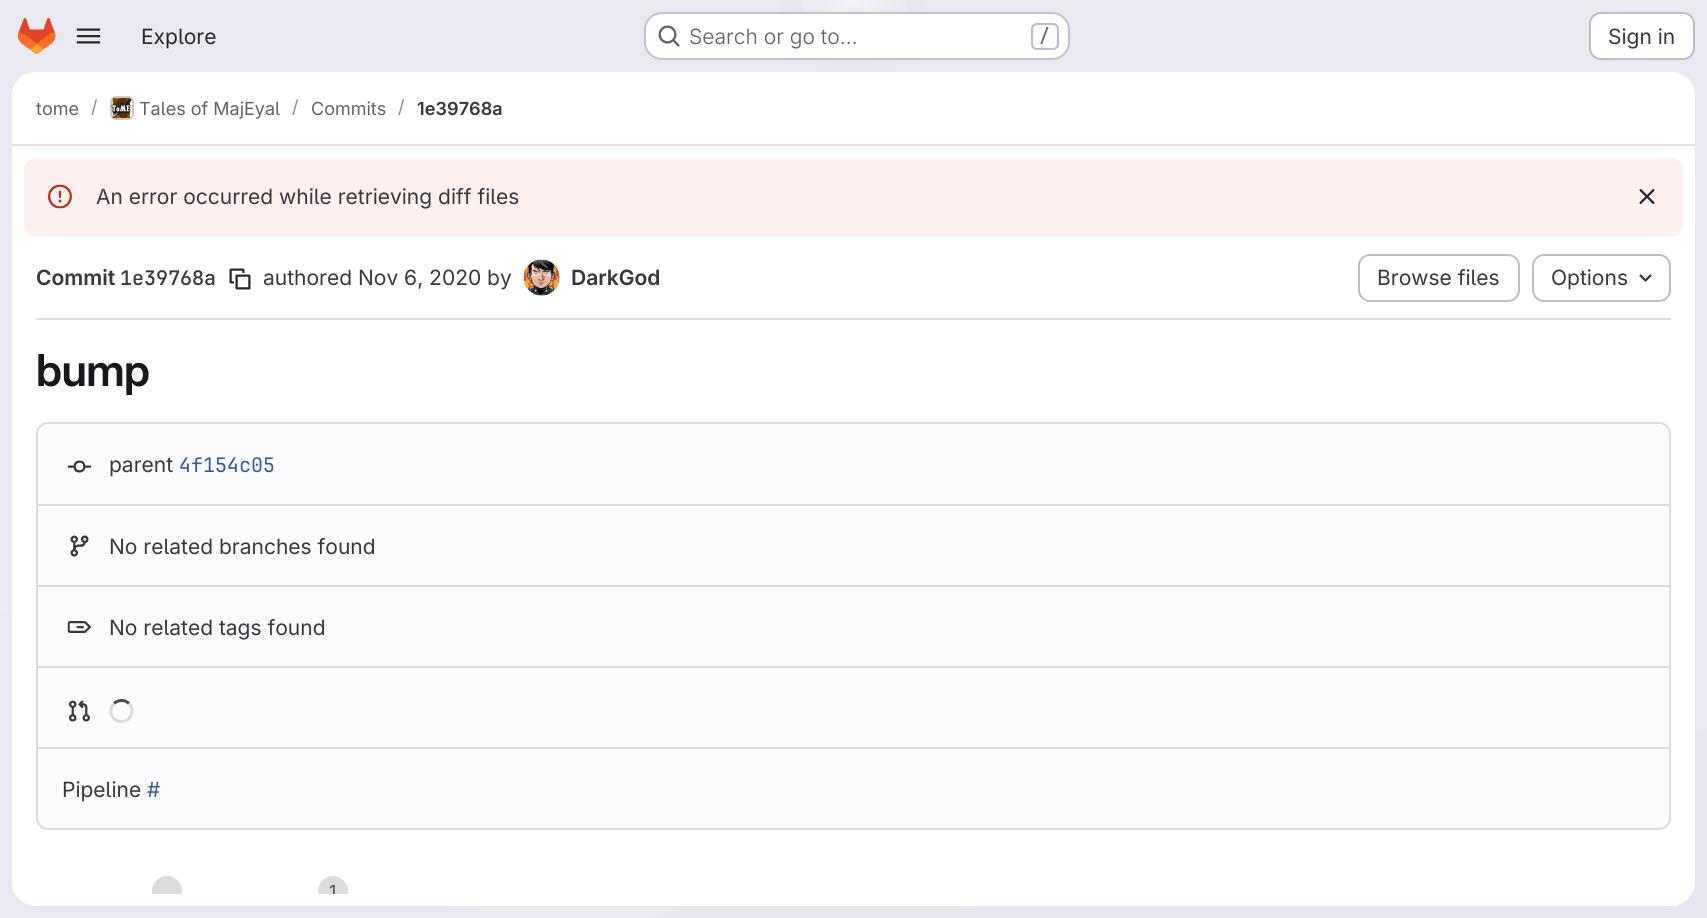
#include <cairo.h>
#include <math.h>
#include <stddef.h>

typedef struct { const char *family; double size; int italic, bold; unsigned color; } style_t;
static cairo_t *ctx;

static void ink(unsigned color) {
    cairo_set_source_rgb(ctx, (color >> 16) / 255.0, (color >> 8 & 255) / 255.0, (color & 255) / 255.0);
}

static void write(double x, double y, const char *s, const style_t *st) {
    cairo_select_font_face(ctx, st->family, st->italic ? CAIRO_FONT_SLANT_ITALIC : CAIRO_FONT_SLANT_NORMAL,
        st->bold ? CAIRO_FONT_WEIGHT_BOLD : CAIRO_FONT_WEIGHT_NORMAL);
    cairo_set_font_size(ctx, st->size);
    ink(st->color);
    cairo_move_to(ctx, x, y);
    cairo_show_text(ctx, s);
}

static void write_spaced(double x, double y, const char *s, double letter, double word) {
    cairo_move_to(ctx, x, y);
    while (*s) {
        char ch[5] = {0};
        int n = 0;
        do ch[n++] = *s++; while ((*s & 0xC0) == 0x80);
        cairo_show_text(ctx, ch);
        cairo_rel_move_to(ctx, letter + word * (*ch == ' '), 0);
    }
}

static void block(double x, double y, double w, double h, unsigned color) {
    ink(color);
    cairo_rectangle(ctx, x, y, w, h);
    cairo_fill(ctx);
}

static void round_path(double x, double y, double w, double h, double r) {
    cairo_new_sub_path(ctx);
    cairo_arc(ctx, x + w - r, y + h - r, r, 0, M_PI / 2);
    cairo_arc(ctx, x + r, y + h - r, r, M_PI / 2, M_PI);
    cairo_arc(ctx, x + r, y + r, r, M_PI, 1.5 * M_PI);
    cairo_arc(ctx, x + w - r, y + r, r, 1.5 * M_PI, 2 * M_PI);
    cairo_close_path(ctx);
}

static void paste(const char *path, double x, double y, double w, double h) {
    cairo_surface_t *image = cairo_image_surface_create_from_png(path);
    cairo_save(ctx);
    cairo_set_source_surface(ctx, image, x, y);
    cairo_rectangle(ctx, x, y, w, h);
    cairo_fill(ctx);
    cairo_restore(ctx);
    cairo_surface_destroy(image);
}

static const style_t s1 = {"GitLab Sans", 21, 0, 0, 0x28272d};
static const style_t s2 = {"GitLab Sans Light", 21, 0, 0, 0x626168};
static const style_t s3 = {"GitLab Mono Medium", 18, 0, 0, 0x626168};
static const style_t s4 = {"GitLab Sans", 21, 0, 0, 0x3a383f};
static const style_t s5 = {"GitLab Sans", 18, 0, 0, 0x626168};
static const style_t s6 = {"GitLab Sans", 18, 0, 0, 0x89888d};
static const style_t s7 = {"GitLab Sans SemiBold", 18, 0, 0, 0x3a383f};
static const style_t s8 = {"GitLab Sans SemiBold", 21, 0, 0, 0x3a383f};
static const style_t s9 = {"GitLab Mono SemiBold", 20, 0, 0, 0x3a383f};
static const style_t s10 = {"GitLab Mono", 20, 0, 0, 0x2f5ca0};
static const style_t s11 = {"GitLab Sans", 21, 0, 0, 0x2f5ca0};
static const style_t s12 = {"GitLab Sans", 18, 0, 0, 0x4c4b51};

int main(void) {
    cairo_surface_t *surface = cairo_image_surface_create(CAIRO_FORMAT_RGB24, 1707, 918);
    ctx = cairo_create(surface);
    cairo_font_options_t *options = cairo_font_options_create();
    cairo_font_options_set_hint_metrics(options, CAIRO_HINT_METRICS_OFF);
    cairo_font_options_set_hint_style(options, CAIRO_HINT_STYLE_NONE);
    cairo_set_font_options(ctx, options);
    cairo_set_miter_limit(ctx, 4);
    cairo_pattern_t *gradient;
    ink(0xffffff);
    cairo_paint(ctx);
    gradient = cairo_pattern_create_linear(958, 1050, 749, -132);
    cairo_pattern_add_color_stop_rgba(gradient, 0, 0.91, 0.902, 0.941, 1);
    cairo_pattern_add_color_stop_rgba(gradient, 0.7, 0.918, 0.914, 0.949, 1);
    cairo_set_source(ctx, gradient);
    cairo_pattern_destroy(gradient);
    cairo_rectangle(ctx, 0, 0, 1707, 918);
    cairo_fill(ctx);
    gradient = cairo_pattern_create_radial(0, 0, 0, 0, 0, 1);
    cairo_pattern_set_matrix(gradient, &(cairo_matrix_t){1.0 / 854, 0, 0, 1.0 / 918, -1.0 * 854 / 854, -1.0 * 0 / 918});
    cairo_pattern_add_color_stop_rgba(gradient, 0, 0.894, 0.886, 0.929, 1);
    cairo_pattern_add_color_stop_rgba(gradient, 0.12, 0.894, 0.886, 0.929, 0);
    cairo_set_source(ctx, gradient);
    cairo_pattern_destroy(gradient);
    cairo_rectangle(ctx, 781, 0, 146, 72);
    cairo_fill(ctx);
    gradient = cairo_pattern_create_radial(0, 0, 0, 0, 0, 1);
    cairo_pattern_set_matrix(gradient, &(cairo_matrix_t){1.0 / 854, 0, 0, 1.0 / 918, -1.0 * 854 / 854, -1.0 * 0 / 918});
    cairo_pattern_add_color_stop_rgba(gradient, 0, 0.894, 0.886, 0.925, 1);
    cairo_pattern_add_color_stop_rgba(gradient, 0.09, 0.894, 0.886, 0.925, 0);
    cairo_set_source(ctx, gradient);
    cairo_pattern_destroy(gradient);
    cairo_rectangle(ctx, 818, 4, 72, 31);
    cairo_fill(ctx);
    gradient = cairo_pattern_create_radial(854, 0, 0, 854, 0, 1253);
    cairo_pattern_add_color_stop_rgba(gradient, 0, 1, 1, 1, 0.6);
    cairo_pattern_add_color_stop_rgba(gradient, 0.05, 1, 1, 1, 0);
    cairo_set_source(ctx, gradient);
    cairo_pattern_destroy(gradient);
    cairo_rectangle(ctx, 801, 0, 106, 12);
    cairo_fill(ctx);
    paste("pic1.png", 18, 18, 38, 36);
    paste("pic2.png", 76, 28, 25, 16);
    write(141, 44, "Explore", &s1);
    ink(0xffffff);
    round_path(644, 12, 426, 48, 18);
    cairo_fill(ctx);
    round_path(645, 13, 424, 46, 17);
    cairo_set_source_rgba(ctx, 0.02, 0.02, 0.024, 0.24);
    cairo_stroke(ctx);
    paste("pic3.png", 658, 25, 22, 22);
    write(689, 44, "Search or go to…", &s2);
    ink(0xfbfafd);
    round_path(1032, 24, 26, 25, 5);
    cairo_fill_preserve(ctx);
    ink(0xbfbfc3);
    cairo_stroke(ctx);
    write(1039, 42, "/", &s3);
    ink(0xffffff);
    round_path(1590, 13, 104, 46, 11);
    cairo_fill_preserve(ctx);
    ink(0xbfbfc3);
    cairo_stroke(ctx);
    write(1608, 44, "Sign in", &s4);
    ink(0xffffff);
    round_path(12, 72, 1683, 834, 24);
    cairo_fill(ctx);
    cairo_new_path(ctx);
    cairo_move_to(ctx, 36, 72);
    cairo_line_to(ctx, 1671, 72);
    cairo_curve_to(ctx, 1684.5, 72, 1695, 82.5, 1695, 96);
    cairo_line_to(ctx, 1695, 146);
    cairo_line_to(ctx, 12, 146);
    cairo_line_to(ctx, 12, 96);
    cairo_curve_to(ctx, 12, 82.5, 22.5, 72, 36, 72);
    cairo_close_path(ctx);
    cairo_fill(ctx);
    block(12, 144, 1683, 2, 0xe1dfec);
    write(36, 115, "tome", &s5);
    write(91, 113, "/", &s6);
    round_path(111, 97, 22, 22, 5);
    ink(0xdcdcde);
    cairo_stroke(ctx);
    paste("pic4.png", 111, 98, 21, 20);
    round_path(111, 97, 22, 22, 5);
    cairo_set_source_rgba(ctx, 0.02, 0.02, 0.024, 0.08);
    cairo_stroke(ctx);
    write(139, 115, "Tales of MajEyal", &s5);
    write(292, 113, "/", &s6);
    write(311, 115, "Commits", &s5);
    write(398, 113, "/", &s6);
    write(417, 115, "1e39768a", &s7);
    ink(0xfcf1ef);
    round_path(24, 158, 1659, 79, 12);
    cairo_fill(ctx);
    paste("pic5.png", 48, 184, 24, 25);
    write(96, 204, "An error occurred while retrieving diff files", &s4);
    paste("pic6.png", 1639, 189, 16, 15);
    write(36, 285, "Commit", &s8);
    write(120, 285, "1e39768a", &s9);
    paste("pic7.png", 229, 268, 22, 22);
    write(263, 285, "authored Nov 6, 2020 by", &s4);
    cairo_new_path(ctx);
    cairo_arc(ctx, 542, 278, 17, 0, 2 * M_PI);
    ink(0xe8e7e9);
    cairo_stroke(ctx);
    paste("pic8.png", 523, 259, 37, 37);
    write(571, 285, "DarkGod", &s8);
    round_path(1359, 255, 160, 46, 11);
    ink(0xbfbfc3);
    cairo_stroke(ctx);
    write(1377, 285, "Browse files", &s4);
    round_path(1533, 255, 137, 46, 11);
    ink(0xbfbfc3);
    cairo_stroke(ctx);
    write(1551, 285, "Options", &s4);
    paste("pic9.png", 1639, 274, 13, 8);
    block(36, 318, 1635, 2, 0xdcdcde);
    cairo_select_font_face(ctx, "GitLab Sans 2 SemiBold", CAIRO_FONT_SLANT_NORMAL, CAIRO_FONT_WEIGHT_NORMAL);
    cairo_set_font_size(ctx, 44);
    ink(0x18171d);
    write_spaced(36, 386, "bump", -0.5, 0);
    ink(0xfbfafd);
    round_path(37, 423, 1633, 406, 11);
    cairo_fill_preserve(ctx);
    ink(0xdcdcde);
    cairo_stroke(ctx);
    paste("pic10.png", 67, 460, 25, 13);
    write(109, 472, "parent", &s4);
    write(179, 472, "4f154c05", &s10);
    block(38, 504, 1632, 2, 0xdcdcde);
    paste("pic11.png", 70, 535, 19, 22);
    write(109, 554, "No related branches found", &s4);
    block(38, 585, 1632, 2, 0xdcdcde);
    paste("pic12.png", 67, 621, 25, 12);
    write(109, 635, "No related tags found", &s4);
    block(38, 666, 1632, 2, 0xdcdcde);
    paste("pic13.png", 69, 700, 21, 22);
    cairo_new_path(ctx);
    cairo_move_to(ctx, 114, 703.5);
    cairo_curve_to(ctx, 118, 699.5, 125, 699.5, 129, 703.5);
    ink(0x4c4b51);
    cairo_set_line_width(ctx, 3);
    cairo_stroke(ctx);
    cairo_new_path(ctx);
    cairo_move_to(ctx, 129, 703.5);
    cairo_curve_to(ctx, 131, 705.5, 132, 708, 132, 711);
    cairo_curve_to(ctx, 132, 723.5, 113.5, 725.5, 111, 713);
    cairo_curve_to(ctx, 110.5, 709.5, 111.5, 706, 114, 703.5);
    ink(0xdcdcde);
    cairo_stroke(ctx);
    block(38, 747, 1632, 2, 0xdcdcde);
    write(62, 797, "Pipeline", &s4);
    write(147, 797, "#", &s11);
    cairo_save(ctx);
    cairo_rectangle(ctx, 12, 146, 1683, 748);
    cairo_clip(ctx);
    ink(0xdcdcde);
    cairo_arc(ctx, 167, 891, 15, 0, 2 * M_PI);
    cairo_fill(ctx);
    cairo_arc(ctx, 333, 891, 15, 0, 2 * M_PI);
    cairo_fill(ctx);
    write(329, 898, "1", &s12);
    cairo_restore(ctx);
    cairo_surface_write_to_png(surface, "screenshot.png");
    cairo_font_options_destroy(options);
    cairo_destroy(ctx);
    cairo_surface_destroy(surface);
    return 0;
}
